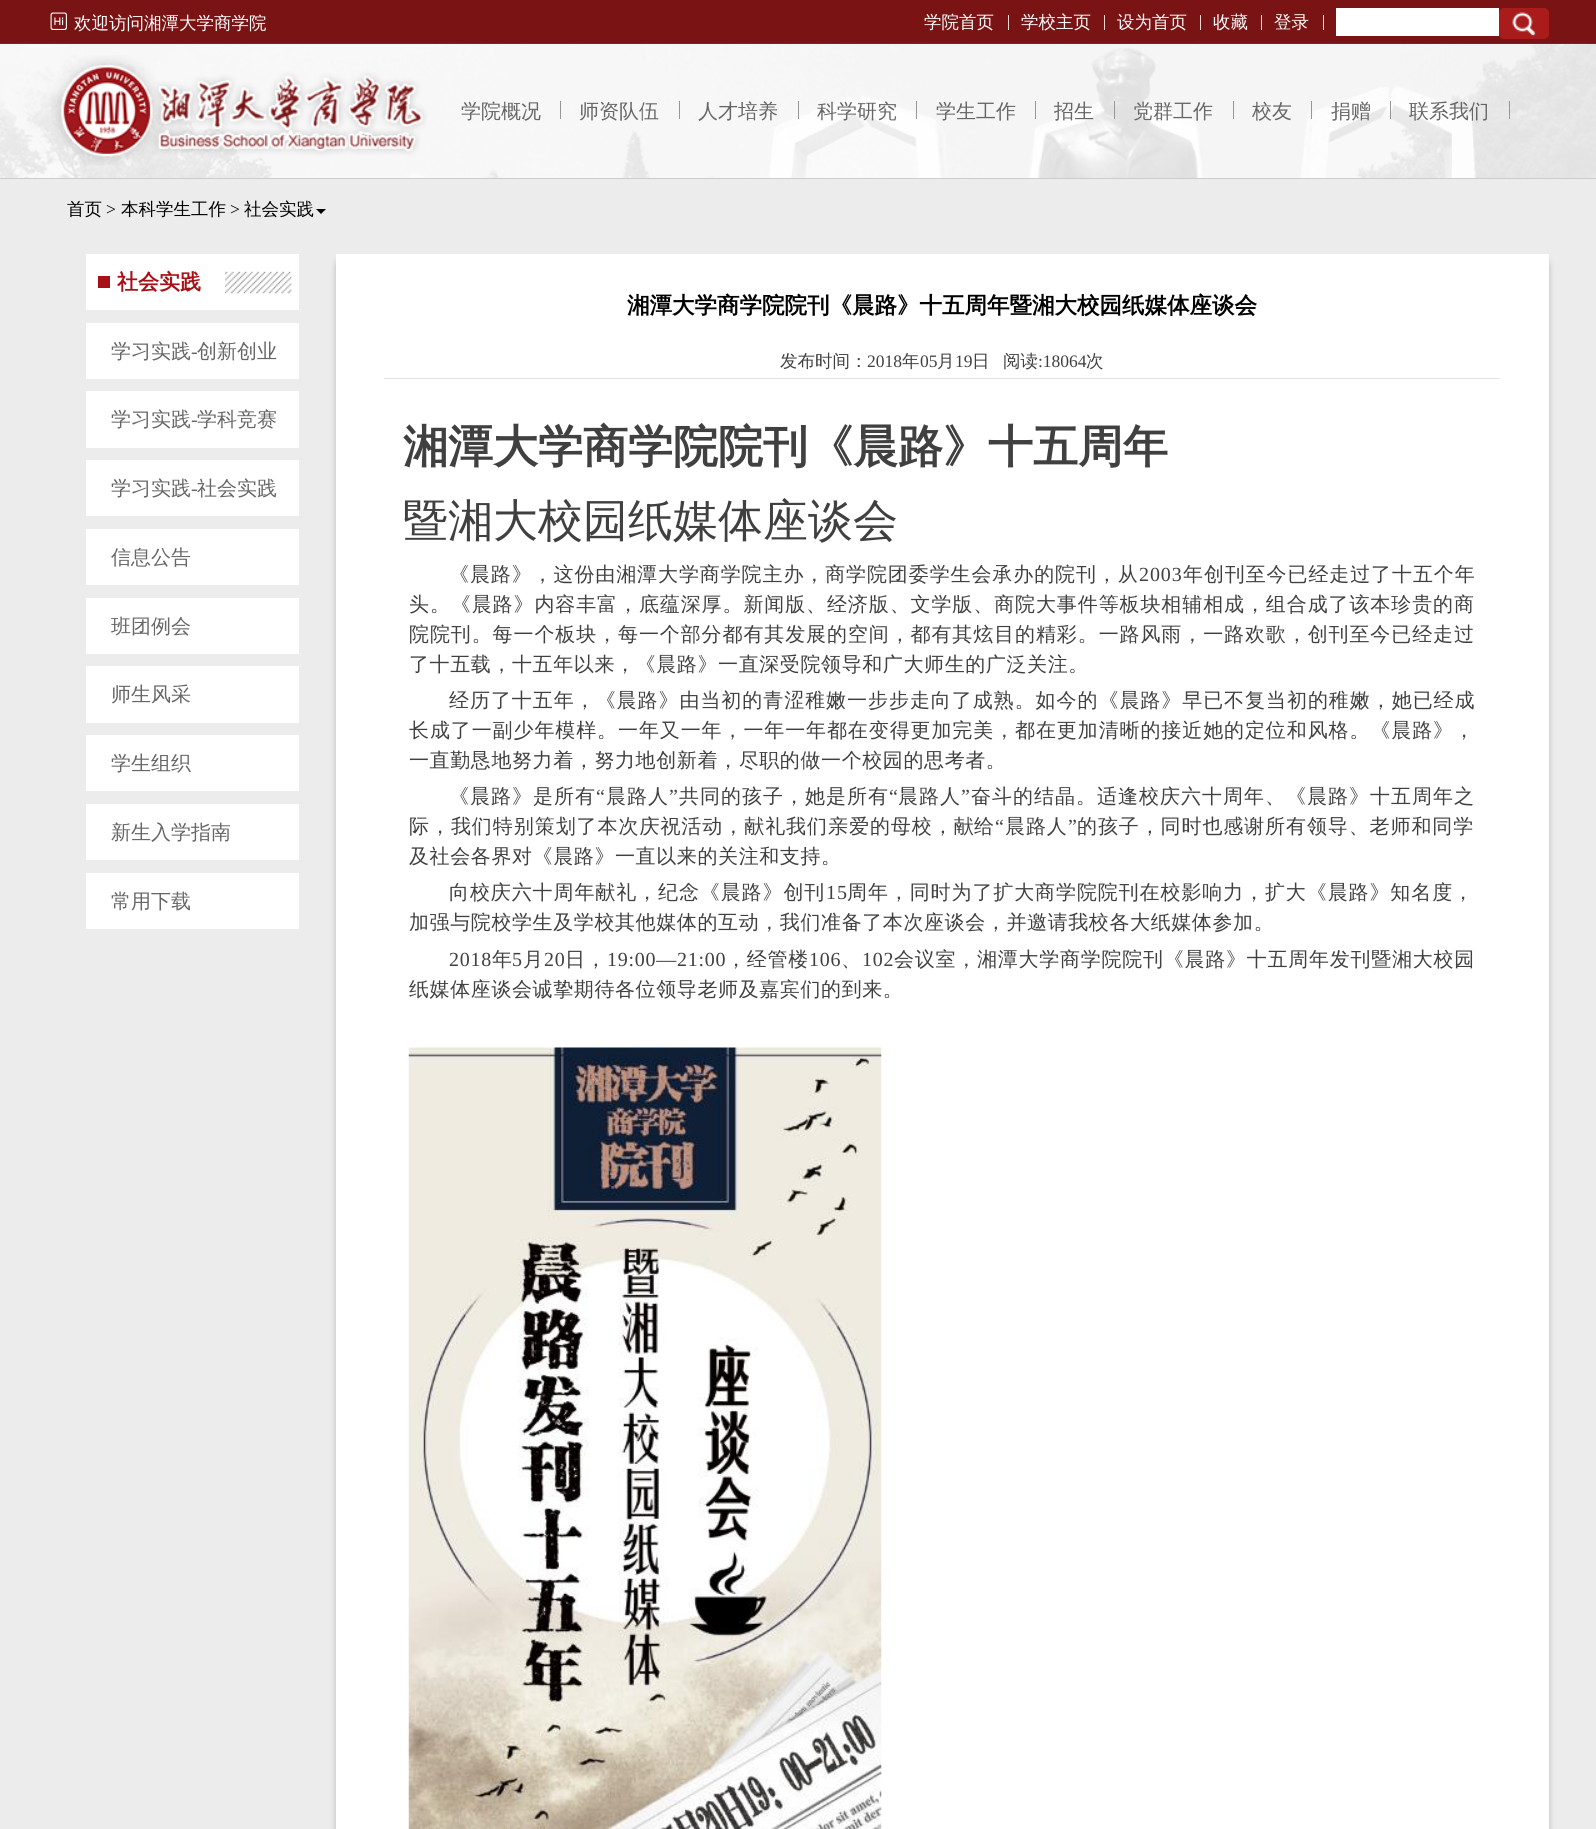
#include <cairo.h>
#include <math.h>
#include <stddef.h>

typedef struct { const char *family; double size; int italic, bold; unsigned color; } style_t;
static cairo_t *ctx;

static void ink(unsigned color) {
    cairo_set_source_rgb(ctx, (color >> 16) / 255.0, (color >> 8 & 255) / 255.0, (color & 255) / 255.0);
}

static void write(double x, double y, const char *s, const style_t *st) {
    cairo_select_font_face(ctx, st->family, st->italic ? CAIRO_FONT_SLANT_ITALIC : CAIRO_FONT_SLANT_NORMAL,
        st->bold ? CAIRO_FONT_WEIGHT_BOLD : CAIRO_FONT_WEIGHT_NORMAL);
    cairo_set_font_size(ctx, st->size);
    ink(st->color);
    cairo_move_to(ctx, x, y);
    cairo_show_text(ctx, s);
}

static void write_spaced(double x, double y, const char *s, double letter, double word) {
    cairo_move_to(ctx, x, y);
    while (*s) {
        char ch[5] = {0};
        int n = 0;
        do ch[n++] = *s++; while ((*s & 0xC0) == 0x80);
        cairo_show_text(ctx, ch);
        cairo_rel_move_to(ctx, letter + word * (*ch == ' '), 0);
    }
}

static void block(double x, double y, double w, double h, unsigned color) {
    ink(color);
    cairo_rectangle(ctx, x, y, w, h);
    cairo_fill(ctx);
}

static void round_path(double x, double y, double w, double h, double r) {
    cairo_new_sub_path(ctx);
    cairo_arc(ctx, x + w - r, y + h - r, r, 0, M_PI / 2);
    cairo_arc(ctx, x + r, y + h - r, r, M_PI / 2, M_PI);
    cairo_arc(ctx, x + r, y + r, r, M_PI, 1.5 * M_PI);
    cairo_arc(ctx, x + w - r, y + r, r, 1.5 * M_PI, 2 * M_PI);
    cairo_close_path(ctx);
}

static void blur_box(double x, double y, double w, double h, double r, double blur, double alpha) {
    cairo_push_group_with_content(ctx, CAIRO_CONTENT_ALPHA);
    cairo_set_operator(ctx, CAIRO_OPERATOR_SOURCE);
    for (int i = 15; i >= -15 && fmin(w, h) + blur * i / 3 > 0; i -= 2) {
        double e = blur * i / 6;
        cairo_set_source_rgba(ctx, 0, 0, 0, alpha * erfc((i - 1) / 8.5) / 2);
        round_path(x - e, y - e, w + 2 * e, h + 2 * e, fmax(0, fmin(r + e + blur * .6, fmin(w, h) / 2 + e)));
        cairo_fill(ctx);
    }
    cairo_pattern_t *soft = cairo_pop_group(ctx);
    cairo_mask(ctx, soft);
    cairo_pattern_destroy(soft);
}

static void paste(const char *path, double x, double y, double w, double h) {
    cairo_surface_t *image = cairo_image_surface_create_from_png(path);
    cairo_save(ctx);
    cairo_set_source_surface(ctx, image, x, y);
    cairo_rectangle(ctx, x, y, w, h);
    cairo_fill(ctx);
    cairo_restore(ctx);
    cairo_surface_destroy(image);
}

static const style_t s1 = {"WenQuanYi Zen Hei Medium", 17.5, 0, 0, 0xffffff};
static const style_t s2 = {"WenQuanYi Zen Hei Medium", 20, 0, 0, 0x666666};
static const style_t s3 = {"WenQuanYi Zen Hei Medium", 17.5, 0, 0, 0x000000};
static const style_t s4 = {"Liberation Serif", 17.5, 0, 0, 0x000000};
static const style_t s5 = {"WenQuanYi Zen Hei", 21, 0, 1, 0xa71016};
static const style_t s6 = {"Liberation Serif", 20, 0, 0, 0x666666};
static const style_t s7 = {"WenQuanYi Zen Hei", 22.5, 0, 1, 0x000000};
static const style_t s8 = {"WenQuanYi Zen Hei Medium", 17.5, 0, 0, 0x404040};
static const style_t s9 = {"Liberation Serif", 17.5, 0, 0, 0x404040};
static const style_t s10 = {"WenQuanYi Zen Hei", 45, 0, 1, 0x404040};
static const style_t s11 = {"WenQuanYi Zen Hei Medium", 45, 0, 0, 0x404040};

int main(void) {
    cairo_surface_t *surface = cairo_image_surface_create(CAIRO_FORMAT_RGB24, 1596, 1829);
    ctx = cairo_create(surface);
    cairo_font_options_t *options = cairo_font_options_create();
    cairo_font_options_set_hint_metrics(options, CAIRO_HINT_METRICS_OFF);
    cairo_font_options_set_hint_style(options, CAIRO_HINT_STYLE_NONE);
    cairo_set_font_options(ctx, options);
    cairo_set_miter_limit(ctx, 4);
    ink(0xececec);
    cairo_paint(ctx);
    block(0, 0, 1596, 44, 0x791314);
    paste("pic1.png", 50, 12, 17, 18);
    write(74, 29, "欢迎访问湘潭大学商学院", &s1);
    write(924, 28, "学院首页", &s1);
    block(1008, 15, 1, 15, 0xf2d5d5);
    write(1021, 28, "学校主页", &s1);
    block(1104, 15, 1, 15, 0xf2d5d5);
    write(1117, 28, "设为首页", &s1);
    block(1200, 15, 1, 15, 0xf2d5d5);
    write(1213, 28, "收藏", &s1);
    block(1261, 15, 1, 15, 0xf2d5d5);
    write(1274, 28, "登录", &s1);
    block(1323, 15, 1, 15, 0xf2d5d5);
    block(1336, 8, 163, 28, 0xffffff);
    ink(0xaa1b1b);
    round_path(1499, 8, 50, 31, 5);
    cairo_fill(ctx);
    paste("pic2.png", 1512, 12, 24, 24);
    paste("pic3.png", 0, 43, 1596, 135);
    block(0, 178, 1596, 1, 0xcccccc);
    paste("pic4.png", 51, 55, 376, 111);
    write(461, 118, "学院概况", &s2);
    block(560, 101, 1, 18, 0x979797);
    write(579, 118, "师资队伍", &s2);
    block(679, 101, 1, 18, 0x979797);
    write(698, 118, "人才培养", &s2);
    block(798, 101, 1, 18, 0x979797);
    write(817, 118, "科学研究", &s2);
    block(916, 101, 1, 18, 0x979797);
    write(936, 118, "学生工作", &s2);
    block(1035, 101, 1, 18, 0x979797);
    write(1054, 118, "招生", &s2);
    block(1114, 101, 1, 18, 0x979797);
    write(1133, 118, "党群工作", &s2);
    block(1233, 101, 1, 18, 0x979797);
    write(1252, 118, "校友", &s2);
    block(1311, 101, 1, 18, 0x979797);
    write(1331, 118, "捐赠", &s2);
    block(1390, 101, 1, 18, 0x979797);
    write(1409, 118, "联系我们", &s2);
    block(1509, 101, 1, 18, 0x979797);
    write(67, 215, "首页", &s3);
    write(106, 215, ">", &s4);
    write(121, 215, "本科学生工作", &s3);
    write(230, 215, ">", &s4);
    write(244, 215, "社会实践", &s3);
    cairo_new_path(ctx);
    cairo_move_to(ctx, 316, 209);
    cairo_line_to(ctx, 326, 209);
    cairo_line_to(ctx, 321, 214);
    cairo_close_path(ctx);
    cairo_fill(ctx);
    block(86, 254, 213, 56, 0xffffff);
    paste("pic5.png", 224, 271, 68, 23);
    block(98, 276, 12, 12, 0xa71016);
    write(117, 289, "社会实践", &s5);
    block(86, 323, 213, 56, 0xffffff);
    write(111, 358, "学习实践", &s2);
    write(191, 358, "-", &s6);
    write(197, 358, "创新创业", &s2);
    block(86, 391, 213, 57, 0xffffff);
    write(111, 426, "学习实践", &s2);
    write(191, 426, "-", &s6);
    write(197, 426, "学科竞赛", &s2);
    block(86, 460, 213, 56, 0xffffff);
    write(111, 495, "学习实践", &s2);
    write(191, 495, "-", &s6);
    write(197, 495, "社会实践", &s2);
    block(86, 529, 213, 56, 0xffffff);
    write(111, 564, "信息公告", &s2);
    block(86, 598, 213, 56, 0xffffff);
    write(111, 633, "班团例会", &s2);
    block(86, 666, 213, 57, 0xffffff);
    write(111, 701, "师生风采", &s2);
    block(86, 735, 213, 56, 0xffffff);
    write(111, 770, "学生组织", &s2);
    block(86, 804, 213, 56, 0xffffff);
    write(111, 839, "新生入学指南", &s2);
    block(86, 873, 213, 56, 0xffffff);
    write(111, 908, "常用下载", &s2);
    cairo_save(ctx);
    cairo_rectangle(ctx, 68, 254, 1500, 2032);
    cairo_clip(ctx);
    ink(0x7a7a7a);
    blur_box(335, 254, 1215, 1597, 14, 2.5, 0.35);
    cairo_restore(ctx);
    block(336, 254, 1213, 1575, 0xffffff);
    write(627, 313, "湘潭大学商学院院刊《晨路》十五周年暨湘大校园纸媒体座谈会", &s7);
    block(384, 378, 1116, 1, 0xe4e4e4);
    write(780, 367, "发布时间：", &s8);
    write(867, 367, "2018", &s9);
    write(902, 367, "年", &s8);
    write(920, 367, "05", &s9);
    write(937, 367, "月", &s8);
    write(955, 367, "19", &s9);
    write(972, 367, "日", &s8);
    write(1003, 367, "阅读", &s8);
    write(1038, 367, ":18064", &s9);
    write(1086, 367, "次", &s8);
    write(403, 462, "湘潭大学商学院院刊《晨路》十五周年", &s10);
    write(403, 536, "暨湘大校园纸媒体座谈会", &s11);
    cairo_set_font_size(ctx, 20);
    write_spaced(449, 581, "《晨路》，这份由湘潭大学商学院主办，商学院团委学生会承办的院刊，从", 0.9, 0);
    cairo_select_font_face(ctx, "Liberation Serif", CAIRO_FONT_SLANT_NORMAL, CAIRO_FONT_WEIGHT_NORMAL);
    write_spaced(1139, 581, "2003", 0.9, 0);
    cairo_select_font_face(ctx, "WenQuanYi Zen Hei Medium", CAIRO_FONT_SLANT_NORMAL, CAIRO_FONT_WEIGHT_NORMAL);
    write_spaced(1183, 581, "年创刊至今已经走过了十五个年", 0.9, 0);
    write_spaced(409, 611, "头。《晨路》内容丰富，底蕴深厚。新闻版、经济版、文学版、商院大事件等板块相辅相成，组合成了该本珍贵的商", 0.9, 0);
    write_spaced(409, 641, "院院刊。每一个板块，每一个部分都有其发展的空间，都有其炫目的精彩。一路风雨，一路欢歌，创刊至今已经走过", 0.9, 0);
    write_spaced(409, 671, "了十五载，十五年以来，《晨路》一直深受院领导和广大师生的广泛关注。", 0.6, 0);
    write_spaced(449, 707, "经历了十五年，《晨路》由当初的青涩稚嫩一步步走向了成熟。如今的《晨路》早已不复当初的稚嫩，她已经成", 0.95, 0);
    write_spaced(409, 737, "长成了一副少年模样。一年又一年，一年一年都在变得更加完美，都在更加清晰的接近她的定位和风格。《晨路》，", 0.9, 0);
    write_spaced(409, 767, "一直勤恳地努力着，努力地创新着，尽职的做一个校园的思考者。", 0.6, 0);
    write_spaced(449, 803, "《晨路》是所有", 1, 0);
    cairo_select_font_face(ctx, "Liberation Serif", CAIRO_FONT_SLANT_NORMAL, CAIRO_FONT_WEIGHT_NORMAL);
    write_spaced(596, 803, "“", 1, 0);
    cairo_select_font_face(ctx, "WenQuanYi Zen Hei Medium", CAIRO_FONT_SLANT_NORMAL, CAIRO_FONT_WEIGHT_NORMAL);
    write_spaced(606, 803, "晨路人", 1, 0);
    cairo_select_font_face(ctx, "Liberation Serif", CAIRO_FONT_SLANT_NORMAL, CAIRO_FONT_WEIGHT_NORMAL);
    write_spaced(669, 803, "”", 1, 0);
    cairo_select_font_face(ctx, "WenQuanYi Zen Hei Medium", CAIRO_FONT_SLANT_NORMAL, CAIRO_FONT_WEIGHT_NORMAL);
    write_spaced(679, 803, "共同的孩子，她是所有", 1, 0);
    cairo_select_font_face(ctx, "Liberation Serif", CAIRO_FONT_SLANT_NORMAL, CAIRO_FONT_WEIGHT_NORMAL);
    write_spaced(889, 803, "“", 1, 0);
    cairo_select_font_face(ctx, "WenQuanYi Zen Hei Medium", CAIRO_FONT_SLANT_NORMAL, CAIRO_FONT_WEIGHT_NORMAL);
    write_spaced(898, 803, "晨路人", 1, 0);
    cairo_select_font_face(ctx, "Liberation Serif", CAIRO_FONT_SLANT_NORMAL, CAIRO_FONT_WEIGHT_NORMAL);
    write_spaced(961, 803, "”", 1, 0);
    cairo_select_font_face(ctx, "WenQuanYi Zen Hei Medium", CAIRO_FONT_SLANT_NORMAL, CAIRO_FONT_WEIGHT_NORMAL);
    write_spaced(971, 803, "奋斗的结晶。适逢校庆六十周年、《晨路》十五周年之", 1, 0);
    write_spaced(409, 833, "际，我们特别策划了本次庆祝活动，献礼我们亲爱的母校，献", 0.95, 0);
    write_spaced(974, 833, "给", 0.9, 0);
    cairo_select_font_face(ctx, "Liberation Serif", CAIRO_FONT_SLANT_NORMAL, CAIRO_FONT_WEIGHT_NORMAL);
    write_spaced(995, 833, "“", 0.9, 0);
    cairo_select_font_face(ctx, "WenQuanYi Zen Hei Medium", CAIRO_FONT_SLANT_NORMAL, CAIRO_FONT_WEIGHT_NORMAL);
    write_spaced(1005, 833, "晨路人", 0.9, 0);
    cairo_select_font_face(ctx, "Liberation Serif", CAIRO_FONT_SLANT_NORMAL, CAIRO_FONT_WEIGHT_NORMAL);
    write_spaced(1068, 833, "”", 0.9, 0);
    cairo_select_font_face(ctx, "WenQuanYi Zen Hei Medium", CAIRO_FONT_SLANT_NORMAL, CAIRO_FONT_WEIGHT_NORMAL);
    write_spaced(1077, 833, "的孩子，同时也感谢所有领导、老师和同学", 0.9, 0);
    write_spaced(409, 863, "及社会各界对《晨路》一直以来的关注和支持。", 0.6, 0);
    write_spaced(449, 899, "向校庆六十周年献礼，纪念《晨路》创刊", 0.9, 0);
    cairo_select_font_face(ctx, "Liberation Serif", CAIRO_FONT_SLANT_NORMAL, CAIRO_FONT_WEIGHT_NORMAL);
    write_spaced(826, 899, "15", 0.9, 0);
    cairo_select_font_face(ctx, "WenQuanYi Zen Hei Medium", CAIRO_FONT_SLANT_NORMAL, CAIRO_FONT_WEIGHT_NORMAL);
    write_spaced(847, 899, "周年，同时为了扩大商学院院刊在校影响力，扩大《晨路》知名度，", 0.9, 0);
    write_spaced(409, 929, "加强与院校学生及学校其他媒体的互动，我们准备了本次座谈会，并邀请我校各大纸媒体参加。", 0.6, 0);
    cairo_select_font_face(ctx, "Liberation Serif", CAIRO_FONT_SLANT_NORMAL, CAIRO_FONT_WEIGHT_NORMAL);
    write_spaced(449, 966, "2018", 0.75, 0);
    cairo_select_font_face(ctx, "WenQuanYi Zen Hei Medium", CAIRO_FONT_SLANT_NORMAL, CAIRO_FONT_WEIGHT_NORMAL);
    write_spaced(492, 966, "年", 0.75, 0);
    cairo_select_font_face(ctx, "Liberation Serif", CAIRO_FONT_SLANT_NORMAL, CAIRO_FONT_WEIGHT_NORMAL);
    write_spaced(512, 966, "5", 0.75, 0);
    cairo_select_font_face(ctx, "WenQuanYi Zen Hei Medium", CAIRO_FONT_SLANT_NORMAL, CAIRO_FONT_WEIGHT_NORMAL);
    write_spaced(523, 966, "月", 0.75, 0);
    cairo_select_font_face(ctx, "Liberation Serif", CAIRO_FONT_SLANT_NORMAL, CAIRO_FONT_WEIGHT_NORMAL);
    write_spaced(544, 966, "20", 0.75, 0);
    cairo_select_font_face(ctx, "WenQuanYi Zen Hei Medium", CAIRO_FONT_SLANT_NORMAL, CAIRO_FONT_WEIGHT_NORMAL);
    write_spaced(565, 966, "日，", 0.75, 0);
    cairo_select_font_face(ctx, "Liberation Serif", CAIRO_FONT_SLANT_NORMAL, CAIRO_FONT_WEIGHT_NORMAL);
    write_spaced(607, 966, "19:00—21:00", 0.75, 0);
    cairo_select_font_face(ctx, "WenQuanYi Zen Hei Medium", CAIRO_FONT_SLANT_NORMAL, CAIRO_FONT_WEIGHT_NORMAL);
    write_spaced(726, 966, "，经管楼", 0.75, 0);
    cairo_select_font_face(ctx, "Liberation Serif", CAIRO_FONT_SLANT_NORMAL, CAIRO_FONT_WEIGHT_NORMAL);
    write_spaced(809, 966, "106", 0.75, 0);
    cairo_select_font_face(ctx, "WenQuanYi Zen Hei Medium", CAIRO_FONT_SLANT_NORMAL, CAIRO_FONT_WEIGHT_NORMAL);
    write_spaced(841, 966, "、", 0.75, 0);
    cairo_select_font_face(ctx, "Liberation Serif", CAIRO_FONT_SLANT_NORMAL, CAIRO_FONT_WEIGHT_NORMAL);
    write_spaced(862, 966, "102", 0.75, 0);
    cairo_select_font_face(ctx, "WenQuanYi Zen Hei Medium", CAIRO_FONT_SLANT_NORMAL, CAIRO_FONT_WEIGHT_NORMAL);
    write_spaced(894, 966, "会议室，湘潭大学商学院院刊《晨路》十五周年发刊暨湘大校园", 0.75, 0);
    write_spaced(409, 996, "纸媒体座谈会诚挚期待各位领导老师及嘉宾们的到来。", 0.6, 0);
    paste("pic6.png", 408, 1047, 474, 782);
    cairo_surface_write_to_png(surface, "screenshot.png");
    cairo_font_options_destroy(options);
    cairo_destroy(ctx);
    cairo_surface_destroy(surface);
    return 0;
}
